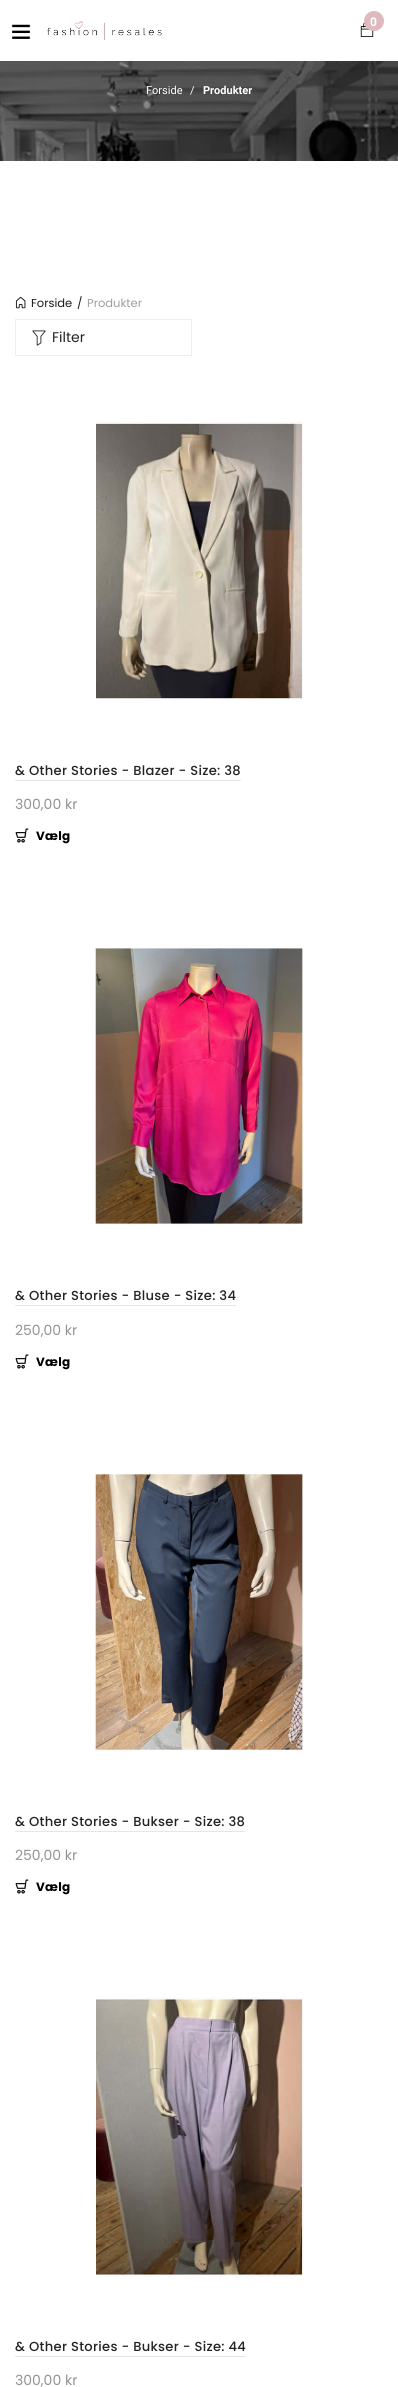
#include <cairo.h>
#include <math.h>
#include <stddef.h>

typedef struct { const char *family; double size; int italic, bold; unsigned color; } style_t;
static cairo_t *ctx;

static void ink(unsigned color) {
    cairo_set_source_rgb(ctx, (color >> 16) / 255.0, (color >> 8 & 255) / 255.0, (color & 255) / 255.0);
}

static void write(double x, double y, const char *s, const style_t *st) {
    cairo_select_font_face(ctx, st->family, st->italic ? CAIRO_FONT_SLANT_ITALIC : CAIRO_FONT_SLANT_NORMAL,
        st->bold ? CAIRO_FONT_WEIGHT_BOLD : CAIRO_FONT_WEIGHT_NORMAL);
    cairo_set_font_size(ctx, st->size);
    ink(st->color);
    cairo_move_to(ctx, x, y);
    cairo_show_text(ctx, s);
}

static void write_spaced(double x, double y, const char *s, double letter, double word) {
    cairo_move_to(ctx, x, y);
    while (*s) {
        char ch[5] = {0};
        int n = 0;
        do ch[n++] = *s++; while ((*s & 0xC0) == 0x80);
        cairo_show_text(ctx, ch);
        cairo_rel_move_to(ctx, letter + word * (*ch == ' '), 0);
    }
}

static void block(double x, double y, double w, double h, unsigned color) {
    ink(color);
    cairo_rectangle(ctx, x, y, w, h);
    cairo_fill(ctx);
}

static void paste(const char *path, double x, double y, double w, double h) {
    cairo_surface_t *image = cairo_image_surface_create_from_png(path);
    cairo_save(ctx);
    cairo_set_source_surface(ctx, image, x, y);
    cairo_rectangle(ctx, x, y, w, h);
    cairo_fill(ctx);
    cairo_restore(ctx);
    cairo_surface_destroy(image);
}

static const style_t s1 = {"Heebo", 12, 0, 1, 0xffffff};
static const style_t s2 = {"Heebo", 11, 0, 0, 0xffffff};
static const style_t s3 = {"Heebo", 11, 0, 1, 0xffffff};
static const style_t s4 = {"Poppins", 11.5, 0, 0, 0x1b1919};
static const style_t s5 = {"Poppins", 11.5, 0, 0, 0x9e9e9e};
static const style_t s6 = {"Poppins", 14, 0, 0, 0x252222};
static const style_t s7 = {"Poppins", 14, 0, 0, 0x949494};

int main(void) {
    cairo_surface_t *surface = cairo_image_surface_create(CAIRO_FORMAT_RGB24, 398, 2387);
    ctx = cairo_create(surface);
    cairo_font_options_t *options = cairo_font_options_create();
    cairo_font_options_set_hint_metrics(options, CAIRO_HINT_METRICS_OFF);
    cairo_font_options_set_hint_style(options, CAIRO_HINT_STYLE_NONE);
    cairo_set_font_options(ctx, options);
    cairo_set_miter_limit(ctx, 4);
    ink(0xffffff);
    cairo_paint(ctx);
    paste("pic1.png", 12, 24, 18, 15);
    paste("pic2.png", 47, 21, 115, 19);
    paste("pic3.png", 360, 22, 14, 15);
    ink(0xdeb9bd);
    cairo_arc(ctx, 374, 21, 10, 0, 2 * M_PI);
    cairo_fill(ctx);
    write(370, 26, "0", &s1);
    paste("pic4.png", 0, 61, 398, 100);
    write(146, 94, "Forside", &s2);
    write(190, 94, "/", &s2);
    write(203, 94, "Produkter", &s3);
    paste("pic5.png", 15, 296, 11, 13);
    write(31, 307, "Forside", &s4);
    write(77, 307, "/", &s4);
    write(87, 307, "Produkter", &s5);
    cairo_rectangle(ctx, 15.5, 319.5, 176, 36);
    ink(0xeeeeee);
    cairo_set_line_width(ctx, 1);
    cairo_stroke(ctx);
    paste("pic6.png", 32, 330, 14, 16);
    write(52, 342, "Filter", &s6);
    paste("pic7.png", 96, 421, 207, 280);
    cairo_select_font_face(ctx, "Poppins Medium", CAIRO_FONT_SLANT_NORMAL, CAIRO_FONT_WEIGHT_NORMAL);
    cairo_set_font_size(ctx, 13.1);
    write_spaced(15, 775, "& Other Stories - Blazer - Size: 38", 0.3, 0);
    block(15, 780, 226, 1, 0xe6e6e6);
    write(15, 809, "300,00 kr", &s7);
    paste("pic8.png", 15, 828, 14, 15);
    cairo_select_font_face(ctx, "Poppins", CAIRO_FONT_SLANT_NORMAL, CAIRO_FONT_WEIGHT_BOLD);
    cairo_set_font_size(ctx, 12);
    ink(0x000000);
    write_spaced(36, 840, "Vælg", 0.3, 0);
    paste("pic9.png", 95, 948, 208, 277);
    cairo_select_font_face(ctx, "Poppins Medium", CAIRO_FONT_SLANT_NORMAL, CAIRO_FONT_WEIGHT_NORMAL);
    cairo_set_font_size(ctx, 13.1);
    ink(0x252222);
    write_spaced(15, 1300, "& Other Stories - Bluse - Size: 34", 0.3, 0);
    block(15, 1305, 221, 1, 0xe6e6e6);
    write(15, 1335, "250,00 kr", &s7);
    paste("pic8.png", 15, 1354, 14, 15);
    cairo_select_font_face(ctx, "Poppins", CAIRO_FONT_SLANT_NORMAL, CAIRO_FONT_WEIGHT_BOLD);
    cairo_set_font_size(ctx, 12);
    ink(0x000000);
    write_spaced(36, 1366, "Vælg", 0.3, 0);
    paste("pic10.png", 95, 1474, 208, 277);
    cairo_select_font_face(ctx, "Poppins Medium", CAIRO_FONT_SLANT_NORMAL, CAIRO_FONT_WEIGHT_NORMAL);
    cairo_set_font_size(ctx, 13.1);
    ink(0x252222);
    write_spaced(15, 1826, "& Other Stories - Bukser - Size: 38", 0.3, 0);
    block(15, 1831, 230, 1, 0xe6e6e6);
    write(15, 1860, "250,00 kr", &s7);
    paste("pic8.png", 15, 1879, 14, 15);
    cairo_select_font_face(ctx, "Poppins", CAIRO_FONT_SLANT_NORMAL, CAIRO_FONT_WEIGHT_BOLD);
    cairo_set_font_size(ctx, 12);
    ink(0x000000);
    write_spaced(36, 1891, "Vælg", 0.3, 0);
    paste("pic11.png", 92, 1997, 214, 280);
    cairo_select_font_face(ctx, "Poppins Medium", CAIRO_FONT_SLANT_NORMAL, CAIRO_FONT_WEIGHT_NORMAL);
    cairo_set_font_size(ctx, 13.1);
    ink(0x252222);
    write_spaced(15, 2351, "& Other Stories - Bukser - Size: 44", 0.3, 0);
    block(15, 2356, 231, 1, 0xe6e6e6);
    write(15, 2385, "300,00 kr", &s7);
    cairo_surface_write_to_png(surface, "screenshot.png");
    cairo_font_options_destroy(options);
    cairo_destroy(ctx);
    cairo_surface_destroy(surface);
    return 0;
}
